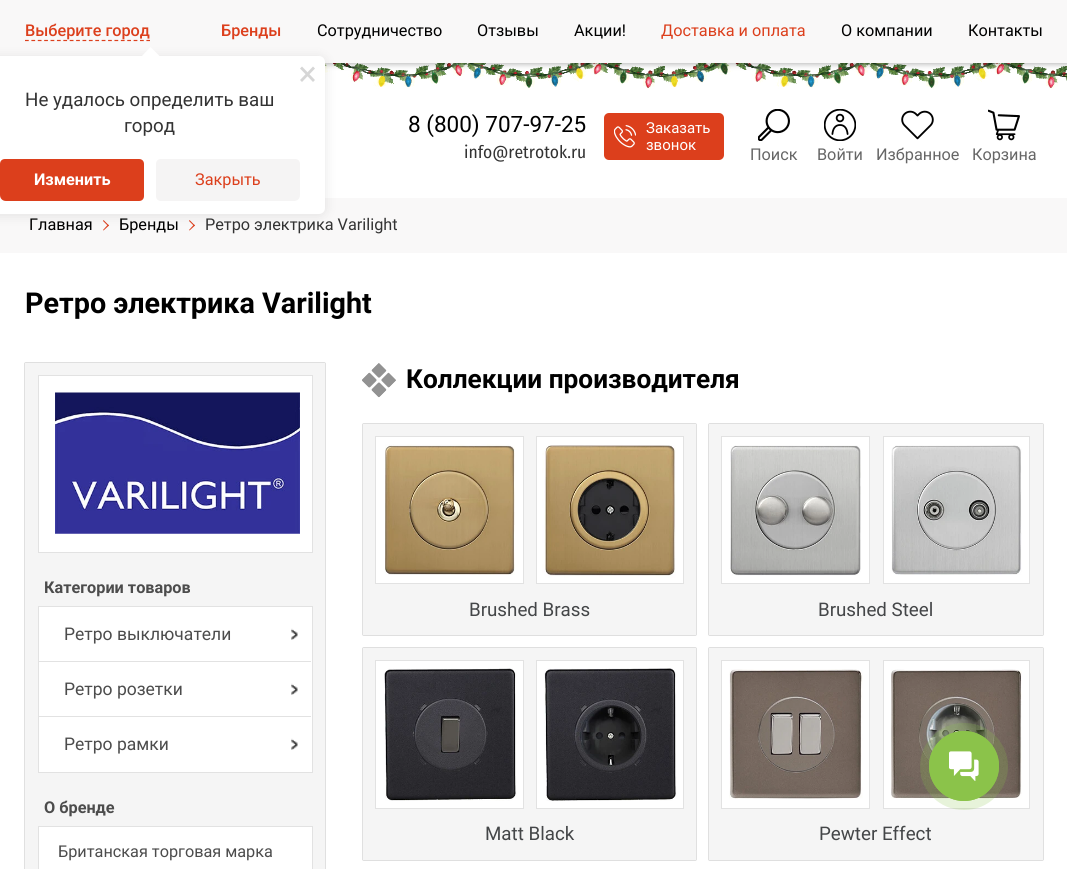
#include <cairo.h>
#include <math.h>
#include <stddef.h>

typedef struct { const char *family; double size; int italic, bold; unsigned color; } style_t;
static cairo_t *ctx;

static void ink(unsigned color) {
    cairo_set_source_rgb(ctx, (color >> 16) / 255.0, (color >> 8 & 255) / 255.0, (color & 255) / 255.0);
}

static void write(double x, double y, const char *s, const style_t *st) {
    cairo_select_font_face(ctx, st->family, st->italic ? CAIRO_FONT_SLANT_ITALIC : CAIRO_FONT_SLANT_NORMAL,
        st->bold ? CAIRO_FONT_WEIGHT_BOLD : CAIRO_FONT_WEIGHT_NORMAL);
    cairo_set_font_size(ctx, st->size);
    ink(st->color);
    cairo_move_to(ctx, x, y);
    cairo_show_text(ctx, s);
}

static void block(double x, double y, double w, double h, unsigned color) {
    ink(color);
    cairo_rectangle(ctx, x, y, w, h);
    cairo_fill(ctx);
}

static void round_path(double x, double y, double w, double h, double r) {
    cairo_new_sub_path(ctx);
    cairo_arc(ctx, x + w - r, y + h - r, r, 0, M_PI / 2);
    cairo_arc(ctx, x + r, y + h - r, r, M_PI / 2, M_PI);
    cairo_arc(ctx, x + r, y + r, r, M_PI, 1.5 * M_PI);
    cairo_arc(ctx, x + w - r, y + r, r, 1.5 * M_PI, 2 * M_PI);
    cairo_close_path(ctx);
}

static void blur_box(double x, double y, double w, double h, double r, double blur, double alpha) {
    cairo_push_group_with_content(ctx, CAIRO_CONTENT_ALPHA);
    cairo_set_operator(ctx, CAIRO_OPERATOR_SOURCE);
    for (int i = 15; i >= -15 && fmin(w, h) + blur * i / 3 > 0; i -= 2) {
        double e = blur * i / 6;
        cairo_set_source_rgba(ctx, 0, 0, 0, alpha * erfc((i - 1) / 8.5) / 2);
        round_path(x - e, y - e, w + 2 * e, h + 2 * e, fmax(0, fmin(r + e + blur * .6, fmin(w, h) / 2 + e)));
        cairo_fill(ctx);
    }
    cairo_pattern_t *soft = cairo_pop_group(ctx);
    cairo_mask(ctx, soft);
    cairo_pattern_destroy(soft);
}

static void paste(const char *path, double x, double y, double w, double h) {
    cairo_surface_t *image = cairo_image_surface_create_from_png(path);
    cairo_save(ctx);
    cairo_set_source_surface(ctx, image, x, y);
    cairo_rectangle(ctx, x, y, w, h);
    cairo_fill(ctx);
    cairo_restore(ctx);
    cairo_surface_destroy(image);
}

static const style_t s1 = {"Roboto Medium", 16.25, 0, 0, 0xdc3f1c};
static const style_t s2 = {"Roboto", 16.25, 0, 0, 0x000000};
static const style_t s3 = {"Roboto", 16.25, 0, 0, 0xdc3f1c};
static const style_t s4 = {"Roboto", 22.5, 0, 0, 0x000000};
static const style_t s5 = {"Roboto", 15, 0, 0, 0xffffff};
static const style_t s6 = {"Fira Sans Condensed", 17.5, 0, 0, 0x333333};
static const style_t s7 = {"Roboto", 16.25, 0, 0, 0x666666};
static const style_t s8 = {"Roboto", 16.25, 0, 0, 0x333333};
static const style_t s9 = {"Roboto", 28.75, 0, 1, 0x000000};
static const style_t s10 = {"Roboto", 16.25, 0, 1, 0x4c4c4c};
static const style_t s11 = {"Roboto", 17.5, 0, 0, 0x4c4c4c};
static const style_t s12 = {"Roboto", 16.25, 0, 0, 0x4c4c4c};
static const style_t s13 = {"Roboto", 26.25, 0, 1, 0x000000};
static const style_t s14 = {"Roboto", 18.75, 0, 0, 0x444648};
static const style_t s15 = {"Roboto", 18.75, 0, 0, 0x333333};
static const style_t s16 = {"Roboto", 16.25, 0, 1, 0xffffff};

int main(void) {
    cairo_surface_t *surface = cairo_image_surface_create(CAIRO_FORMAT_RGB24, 1067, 869);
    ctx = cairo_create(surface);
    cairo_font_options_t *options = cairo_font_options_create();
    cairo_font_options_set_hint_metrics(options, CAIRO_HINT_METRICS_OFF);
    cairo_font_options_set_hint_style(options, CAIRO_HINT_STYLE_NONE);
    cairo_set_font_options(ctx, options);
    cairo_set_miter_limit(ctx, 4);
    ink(0xffffff);
    cairo_paint(ctx);
    paste("pic1.png", 325, 63, 742, 27);
    ink(0x000000);
    blur_box(-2, -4, 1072, 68, 0, 3, 0.3);
    block(0, 0, 1067, 63, 0xf9f8f8);
    cairo_new_path(ctx);
    cairo_move_to(ctx, 25, 40.5);
    cairo_line_to(ctx, 150, 40.5);
    ink(0xdc3f1c);
    cairo_set_line_width(ctx, 1.2);
    cairo_set_dash(ctx, (double[]){3.75, 2.64}, 2, 0);
    cairo_stroke(ctx);
    write(25, 36, "Выберите город", &s1);
    write(221, 36, "Бренды", &s1);
    write(317, 36, "Сотрудничество", &s2);
    write(477, 36, "Отзывы", &s2);
    write(574, 36, "Акции!", &s2);
    write(661, 36, "Доставка и оплата", &s3);
    write(841, 36, "О компании", &s2);
    write(968, 36, "Контакты", &s2);
    write(408, 132, "8 (800) 707-97-25", &s4);
    ink(0xdc3f1c);
    round_path(604, 113, 120, 47, 5);
    cairo_fill(ctx);
    paste("pic2.png", 614, 125, 22, 23);
    write(646, 133, "Заказать", &s5);
    write(646, 150, "звонок", &s5);
    write(464, 158, "info@retrotok.ru", &s6);
    paste("pic3.png", 758, 109, 32, 32);
    write(750, 160, "Поиск", &s7);
    paste("pic4.png", 824, 109, 32, 32);
    write(817, 160, "Войти", &s7);
    paste("pic5.png", 901, 110, 33, 30);
    write(876, 160, "Избранное", &s7);
    paste("pic6.png", 988, 109, 32, 32);
    write(972, 160, "Корзина", &s7);
    block(0, 198, 1067, 55, 0xf9f8f8);
    write(29, 230, "Главная", &s2);
    ink(0xdc3f1c);
    cairo_new_path(ctx);
    cairo_move_to(ctx, 103.5, 220);
    cairo_line_to(ctx, 109, 225.5);
    cairo_line_to(ctx, 108, 226);
    cairo_line_to(ctx, 103, 221);
    cairo_close_path(ctx);
    cairo_fill(ctx);
    cairo_new_path(ctx);
    cairo_move_to(ctx, 108, 224.5);
    cairo_line_to(ctx, 109, 225.5);
    cairo_line_to(ctx, 103.5, 230.5);
    cairo_line_to(ctx, 103, 230);
    cairo_close_path(ctx);
    cairo_fill(ctx);
    write(119, 230, "Бренды", &s2);
    ink(0xdc3f1c);
    cairo_new_path(ctx);
    cairo_move_to(ctx, 189.5, 220);
    cairo_line_to(ctx, 195, 225.5);
    cairo_line_to(ctx, 194, 226);
    cairo_line_to(ctx, 189, 221);
    cairo_close_path(ctx);
    cairo_fill(ctx);
    cairo_new_path(ctx);
    cairo_move_to(ctx, 194, 224.5);
    cairo_line_to(ctx, 195, 225.5);
    cairo_line_to(ctx, 189.5, 230.5);
    cairo_line_to(ctx, 189, 230);
    cairo_close_path(ctx);
    cairo_fill(ctx);
    write(205, 230, "Ретро электрика Varilight", &s8);
    write(25, 313, "Ретро электрика Varilight", &s9);
    ink(0x000000);
    blur_box(25, 363, 300, 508, 0, 0.5, 0.5);
    block(25, 363, 300, 506, 0xf5f5f5);
    ink(0xffffff);
    cairo_rectangle(ctx, 38.5, 375.5, 274, 177);
    cairo_fill_preserve(ctx);
    ink(0xe2e2e2);
    cairo_set_line_width(ctx, 1);
    cairo_set_dash(ctx, NULL, 0, 0);
    cairo_stroke(ctx);
    paste("pic7.png", 55, 392, 245, 142);
    write(44, 593, "Категории товаров", &s10);
    ink(0xffffff);
    cairo_rectangle(ctx, 38.5, 606.5, 274, 166);
    cairo_fill_preserve(ctx);
    ink(0xe2e2e2);
    cairo_stroke(ctx);
    paste("pic8.png", 291, 628, 7, 12);
    write(64, 640, "Ретро выключатели", &s11);
    block(39, 661, 272, 1, 0xe2e2e2);
    paste("pic8.png", 291, 683, 7, 12);
    write(64, 695, "Ретро розетки", &s11);
    block(39, 716, 272, 1, 0xe2e2e2);
    paste("pic8.png", 291, 738, 7, 12);
    write(64, 750, "Ретро рамки", &s11);
    write(44, 813, "О бренде", &s10);
    ink(0xffffff);
    cairo_rectangle(ctx, 38.5, 826.5, 274, 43);
    cairo_fill_preserve(ctx);
    ink(0xe2e2e2);
    cairo_stroke(ctx);
    write(58, 857, "Британская торговая марка", &s12);
    paste("pic9.png", 362, 363, 34, 35);
    write(406, 388, "Коллекции производителя", &s13);
    ink(0x000000);
    blur_box(363, 424, 333, 211, 0, 0.5, 0.5);
    block(363, 424, 333, 211, 0xf5f5f5);
    ink(0xffffff);
    cairo_rectangle(ctx, 375.5, 436.5, 148, 147);
    cairo_fill_preserve(ctx);
    ink(0xe2e2e2);
    cairo_stroke(ctx);
    paste("pic10.png", 385, 444, 130, 131);
    ink(0xffffff);
    cairo_rectangle(ctx, 536.5, 436.5, 147, 147);
    cairo_fill_preserve(ctx);
    ink(0xe2e2e2);
    cairo_stroke(ctx);
    paste("pic11.png", 542, 445, 134, 133);
    write(469, 616, "Brushed Brass", &s14);
    ink(0x000000);
    blur_box(709, 424, 334, 211, 0, 0.5, 0.5);
    block(709, 424, 334, 211, 0xf5f5f5);
    ink(0xffffff);
    cairo_rectangle(ctx, 721.5, 436.5, 148, 147);
    cairo_fill_preserve(ctx);
    ink(0xe2e2e2);
    cairo_stroke(ctx);
    paste("pic12.png", 730, 445, 131, 131);
    ink(0xffffff);
    cairo_rectangle(ctx, 883.5, 436.5, 146, 147);
    cairo_fill_preserve(ctx);
    ink(0xe2e2e2);
    cairo_stroke(ctx);
    paste("pic13.png", 891, 445, 131, 130);
    write(818, 616, "Brushed Steel", &s14);
    ink(0x000000);
    blur_box(363, 648, 333, 212, 0, 0.5, 0.5);
    block(363, 648, 333, 212, 0xf5f5f5);
    ink(0xffffff);
    cairo_rectangle(ctx, 375.5, 660.5, 148, 148);
    cairo_fill_preserve(ctx);
    ink(0xe2e2e2);
    cairo_stroke(ctx);
    paste("pic14.png", 384, 668, 133, 133);
    ink(0xffffff);
    cairo_rectangle(ctx, 536.5, 660.5, 147, 148);
    cairo_fill_preserve(ctx);
    ink(0xe2e2e2);
    cairo_stroke(ctx);
    paste("pic15.png", 544, 668, 133, 133);
    write(485, 840, "Matt Black", &s14);
    ink(0x000000);
    blur_box(709, 648, 334, 212, 0, 0.5, 0.5);
    block(709, 648, 334, 212, 0xf5f5f5);
    ink(0xffffff);
    cairo_rectangle(ctx, 721.5, 660.5, 148, 148);
    cairo_fill_preserve(ctx);
    ink(0xe2e2e2);
    cairo_stroke(ctx);
    paste("pic16.png", 729, 669, 134, 130);
    ink(0xffffff);
    cairo_rectangle(ctx, 883.5, 660.5, 146, 148);
    cairo_fill_preserve(ctx);
    ink(0xe2e2e2);
    cairo_stroke(ctx);
    paste("pic17.png", 891, 669, 131, 130);
    write(819, 840, "Pewter Effect", &s14);
    ink(0x000000);
    blur_box(-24, 58, 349, 157, 6, 6, 0.1);
    ink(0xffffff);
    round_path(-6, 56, 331, 158, 6);
    cairo_fill(ctx);
    cairo_new_path(ctx);
    cairo_move_to(ctx, 150.5, 47);
    cairo_line_to(ctx, 160.5, 57);
    cairo_line_to(ctx, 150.5, 66.5);
    cairo_line_to(ctx, 141, 57);
    cairo_close_path(ctx);
    cairo_fill(ctx);
    ink(0xd6d6d6);
    cairo_new_path(ctx);
    cairo_move_to(ctx, 313, 66.5);
    cairo_line_to(ctx, 315, 68.5);
    cairo_line_to(ctx, 302, 82);
    cairo_line_to(ctx, 300, 80);
    cairo_close_path(ctx);
    cairo_fill(ctx);
    cairo_new_path(ctx);
    cairo_move_to(ctx, 300, 68.5);
    cairo_line_to(ctx, 302, 66.5);
    cairo_line_to(ctx, 315, 80);
    cairo_line_to(ctx, 313, 82);
    cairo_close_path(ctx);
    cairo_fill(ctx);
    write(25, 106, "Не удалось определить ваш", &s15);
    write(124, 132, "город", &s15);
    ink(0xdc3f1c);
    cairo_new_path(ctx);
    cairo_move_to(ctx, 5, 159);
    cairo_line_to(ctx, 139, 159);
    cairo_curve_to(ctx, 142, 159, 144, 161, 144, 164);
    cairo_line_to(ctx, 144, 196);
    cairo_curve_to(ctx, 144, 199, 142, 201, 139, 201);
    cairo_line_to(ctx, 6, 201);
    cairo_curve_to(ctx, 2.5, 201, 0, 198.5, 0, 195);
    cairo_line_to(ctx, 0, 164);
    cairo_curve_to(ctx, 0, 161, 2, 159, 5, 159);
    cairo_close_path(ctx);
    cairo_fill(ctx);
    write(34, 185, "Изменить", &s16);
    ink(0xf5f4f4);
    cairo_new_path(ctx);
    cairo_move_to(ctx, 161, 159);
    cairo_line_to(ctx, 295, 159);
    cairo_curve_to(ctx, 298, 159, 300, 161, 300, 164);
    cairo_line_to(ctx, 300, 195);
    cairo_curve_to(ctx, 300, 198.5, 297.5, 201, 294, 201);
    cairo_line_to(ctx, 161, 201);
    cairo_curve_to(ctx, 158, 201, 156, 199, 156, 196);
    cairo_line_to(ctx, 156, 164);
    cairo_curve_to(ctx, 156, 161, 158, 159, 161, 159);
    cairo_close_path(ctx);
    cairo_fill(ctx);
    write(195, 185, "Закрыть", &s3);
    cairo_set_source_rgba(ctx, 0.545, 0.765, 0.29, 0.2);
    round_path(920, 723, 88, 87, 43.5);
    cairo_fill(ctx);
    cairo_arc(ctx, 964, 766, 34.5, 0, 2 * M_PI);
    ink(0x8bc34a);
    cairo_stroke(ctx);
    cairo_arc(ctx, 964, 766, 35, 0, 2 * M_PI);
    cairo_fill(ctx);
    paste("pic18.png", 949, 751, 30, 30);
    cairo_surface_write_to_png(surface, "screenshot.png");
    cairo_font_options_destroy(options);
    cairo_destroy(ctx);
    cairo_surface_destroy(surface);
    return 0;
}
